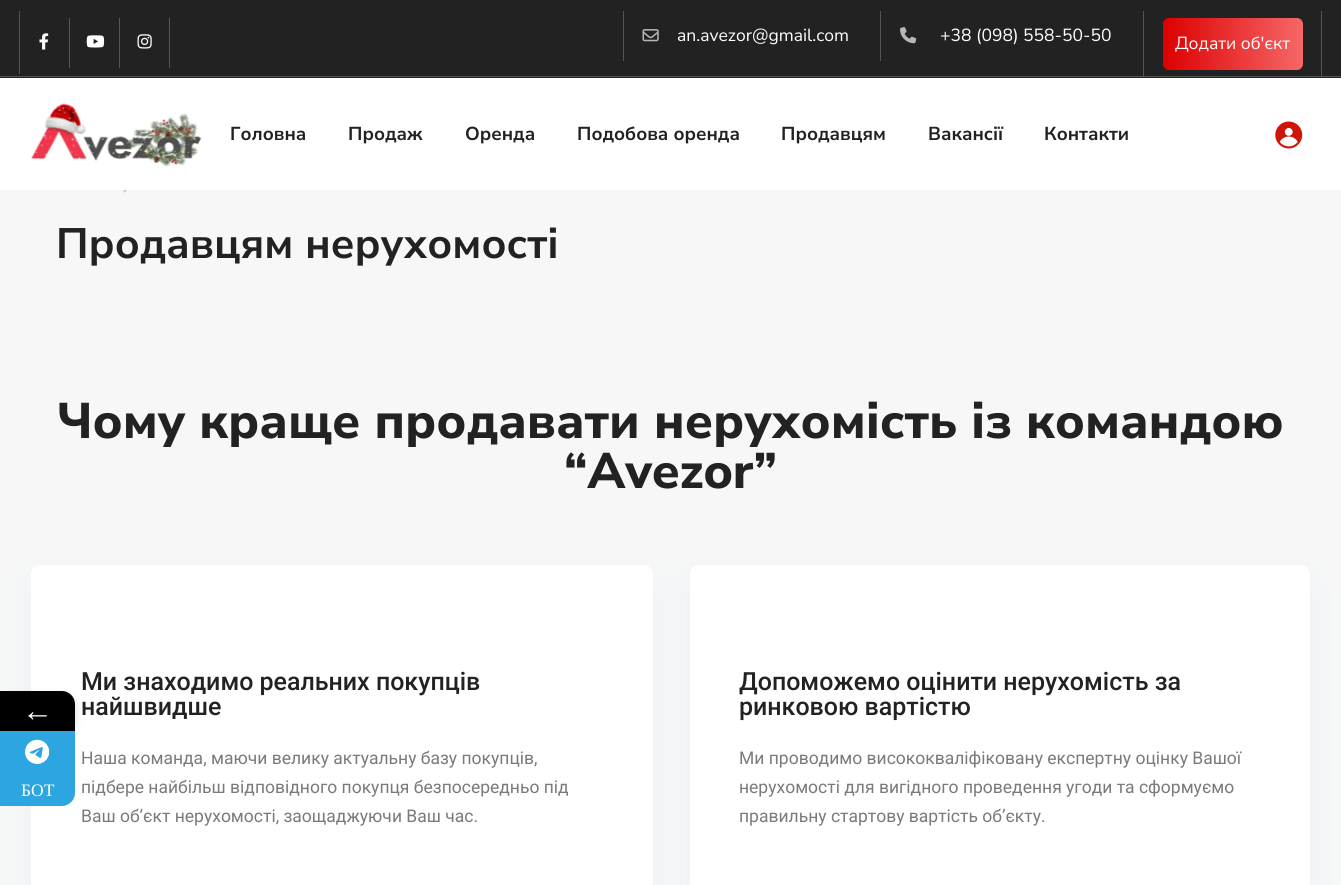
#include <cairo.h>
#include <math.h>
#include <stddef.h>

typedef struct { const char *family; double size; int italic, bold; unsigned color; } style_t;
static cairo_t *ctx;

static void ink(unsigned color) {
    cairo_set_source_rgb(ctx, (color >> 16) / 255.0, (color >> 8 & 255) / 255.0, (color & 255) / 255.0);
}

static void write(double x, double y, const char *s, const style_t *st) {
    cairo_select_font_face(ctx, st->family, st->italic ? CAIRO_FONT_SLANT_ITALIC : CAIRO_FONT_SLANT_NORMAL,
        st->bold ? CAIRO_FONT_WEIGHT_BOLD : CAIRO_FONT_WEIGHT_NORMAL);
    cairo_set_font_size(ctx, st->size);
    ink(st->color);
    cairo_move_to(ctx, x, y);
    cairo_show_text(ctx, s);
}

static void block(double x, double y, double w, double h, unsigned color) {
    ink(color);
    cairo_rectangle(ctx, x, y, w, h);
    cairo_fill(ctx);
}

static void round_path(double x, double y, double w, double h, double r) {
    cairo_new_sub_path(ctx);
    cairo_arc(ctx, x + w - r, y + h - r, r, 0, M_PI / 2);
    cairo_arc(ctx, x + r, y + h - r, r, M_PI / 2, M_PI);
    cairo_arc(ctx, x + r, y + r, r, M_PI, 1.5 * M_PI);
    cairo_arc(ctx, x + w - r, y + r, r, 1.5 * M_PI, 2 * M_PI);
    cairo_close_path(ctx);
}

static void blur_box(double x, double y, double w, double h, double r, double blur, double alpha) {
    cairo_push_group_with_content(ctx, CAIRO_CONTENT_ALPHA);
    cairo_set_operator(ctx, CAIRO_OPERATOR_SOURCE);
    for (int i = 15; i >= -15 && fmin(w, h) + blur * i / 3 > 0; i -= 2) {
        double e = blur * i / 6;
        cairo_set_source_rgba(ctx, 0, 0, 0, alpha * erfc((i - 1) / 8.5) / 2);
        round_path(x - e, y - e, w + 2 * e, h + 2 * e, fmax(0, fmin(r + e + blur * .6, fmin(w, h) / 2 + e)));
        cairo_fill(ctx);
    }
    cairo_pattern_t *soft = cairo_pop_group(ctx);
    cairo_mask(ctx, soft);
    cairo_pattern_destroy(soft);
}

static void paste(const char *path, double x, double y, double w, double h) {
    cairo_surface_t *image = cairo_image_surface_create_from_png(path);
    cairo_save(ctx);
    cairo_set_source_surface(ctx, image, x, y);
    cairo_rectangle(ctx, x, y, w, h);
    cairo_fill(ctx);
    cairo_restore(ctx);
    cairo_surface_destroy(image);
}

static const style_t s1 = {"Liberation Serif", 31, 0, 0, 0xffffff};
static const style_t s2 = {"Liberation Serif", 17.5, 0, 0, 0xffffff};
static const style_t s3 = {"Nunito Sans", 17.5, 0, 0, 0xffffff};
static const style_t s4 = {"Nunito Sans", 18.75, 0, 1, 0x222222};
static const style_t s5 = {"Nunito Sans", 42.5, 0, 1, 0x222222};
static const style_t s6 = {"Nunito Sans ExtraBold", 50, 0, 0, 0x222222};
static const style_t s7 = {"Roboto Medium", 25, 0, 0, 0x222222};
static const style_t s8 = {"Roboto", 17.5, 0, 0, 0x7a7a7a};

int main(void) {
    cairo_surface_t *surface = cairo_image_surface_create(CAIRO_FORMAT_RGB24, 1341, 885);
    ctx = cairo_create(surface);
    cairo_font_options_t *options = cairo_font_options_create();
    cairo_font_options_set_hint_metrics(options, CAIRO_HINT_METRICS_OFF);
    cairo_font_options_set_hint_style(options, CAIRO_HINT_STYLE_NONE);
    cairo_set_font_options(ctx, options);
    cairo_set_miter_limit(ctx, 4);
    cairo_pattern_t *gradient;
    ink(0xf7f7f7);
    cairo_paint(ctx);
    ink(0x0798ff);
    blur_box(31, 578, 622, 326, 9, 19.5, 0.05);
    ink(0xffffff);
    round_path(31, 565, 622, 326, 9);
    cairo_fill(ctx);
    ink(0x000000);
    blur_box(0, 695, 75, 40, 13, 4, 0.16);
    ink(0x000000);
    cairo_new_path(ctx);
    cairo_move_to(ctx, 0, 691);
    cairo_line_to(ctx, 62, 691);
    cairo_curve_to(ctx, 69, 691, 75, 697, 75, 704);
    cairo_line_to(ctx, 75, 731);
    cairo_line_to(ctx, 0, 731);
    cairo_close_path(ctx);
    cairo_fill(ctx);
    write(22, 721, "←", &s1);
    ink(0x2ca5e0);
    cairo_new_path(ctx);
    cairo_move_to(ctx, 0, 731);
    cairo_line_to(ctx, 75, 731);
    cairo_line_to(ctx, 75, 793);
    cairo_curve_to(ctx, 75, 800, 69, 806, 62, 806);
    cairo_line_to(ctx, 0, 806);
    cairo_close_path(ctx);
    cairo_fill(ctx);
    paste("pic1.png", 25, 739, 25, 25);
    write(21, 796, "БОТ", &s2);
    block(0, 78, 1341, 112, 0xffffff);
    block(0, 0, 1341, 78, 0x222222);
    block(0, 76, 1341, 1, 0x565656);
    block(19, 11, 1, 63, 0x565656);
    block(69, 18, 1, 50, 0x565656);
    paste("pic2.png", 39, 33, 10, 17);
    block(119, 18, 1, 50, 0x565656);
    paste("pic3.png", 86, 35, 19, 13);
    block(169, 18, 1, 50, 0x565656);
    paste("pic4.png", 137, 34, 15, 15);
    block(623, 11, 1, 50, 0x565656);
    paste("pic5.png", 642, 29, 17, 13);
    write(677, 41, "an.avezor@gmail.com", &s3);
    block(880, 11, 1, 50, 0x565656);
    paste("pic6.png", 900, 27, 17, 17);
    write(940, 41, "+38 (098) 558-50-50", &s3);
    block(1321, 11, 1, 65, 0x565656);
    block(1143, 11, 1, 65, 0x565656);
    gradient = cairo_pattern_create_linear(1163, 44, 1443, 44);
    cairo_pattern_add_color_stop_rgba(gradient, 0, 0.867, 0, 0, 1);
    cairo_pattern_add_color_stop_rgba(gradient, 0.6, 0.984, 0.486, 0.486, 1);
    cairo_pattern_add_color_stop_rgba(gradient, 1, 0.867, 0, 0, 1);
    cairo_set_source(ctx, gradient);
    cairo_pattern_destroy(gradient);
    round_path(1163, 18, 140, 52, 6);
    cairo_fill(ctx);
    write(1175, 49, "Додати об'єкт", &s3);
    paste("pic7.png", 31, 103, 171, 64);
    write(230, 140, "Головна", &s4);
    write(348, 140, "Продаж", &s4);
    write(465, 140, "Оренда", &s4);
    write(577, 140, "Подобова оренда", &s4);
    write(781, 140, "Продавцям", &s4);
    write(928, 140, "Вакансії", &s4);
    write(1044, 140, "Контакти", &s4);
    paste("pic8.png", 1275, 121, 28, 28);
    paste("pic9.png", 123, 190, 4, 3);
    write(56, 258, "Продавцям нерухомості", &s5);
    write(57, 438, "Чому краще продавати нерухомість із командою", &s6);
    write(564, 488, "“Avezor”", &s6);
    write(81, 690, "Ми знаходимо реальних покупців", &s7);
    write(81, 715, "найшвидше", &s7);
    write(81, 764, "Наша команда, маючи велику актуальну базу покупців,", &s8);
    write(81, 793, "підбере найбільш відповідного покупця безпосередньо під", &s8);
    write(81, 822, "Ваш об’єкт нерухомості, заощаджуючи Ваш час.", &s8);
    ink(0x0798ff);
    blur_box(690, 578, 620, 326, 9, 19.5, 0.05);
    ink(0xffffff);
    round_path(690, 565, 620, 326, 9);
    cairo_fill(ctx);
    write(739, 690, "Допоможемо оцінити нерухомість за", &s7);
    write(739, 715, "ринковою вартістю", &s7);
    write(739, 764, "Ми проводимо висококваліфіковану експертну оцінку Вашої", &s8);
    write(739, 793, "нерухомості для вигідного проведення угоди та сформуємо", &s8);
    write(739, 822, "правильну стартову вартість об’єкту.", &s8);
    cairo_surface_write_to_png(surface, "screenshot.png");
    cairo_font_options_destroy(options);
    cairo_destroy(ctx);
    cairo_surface_destroy(surface);
    return 0;
}
